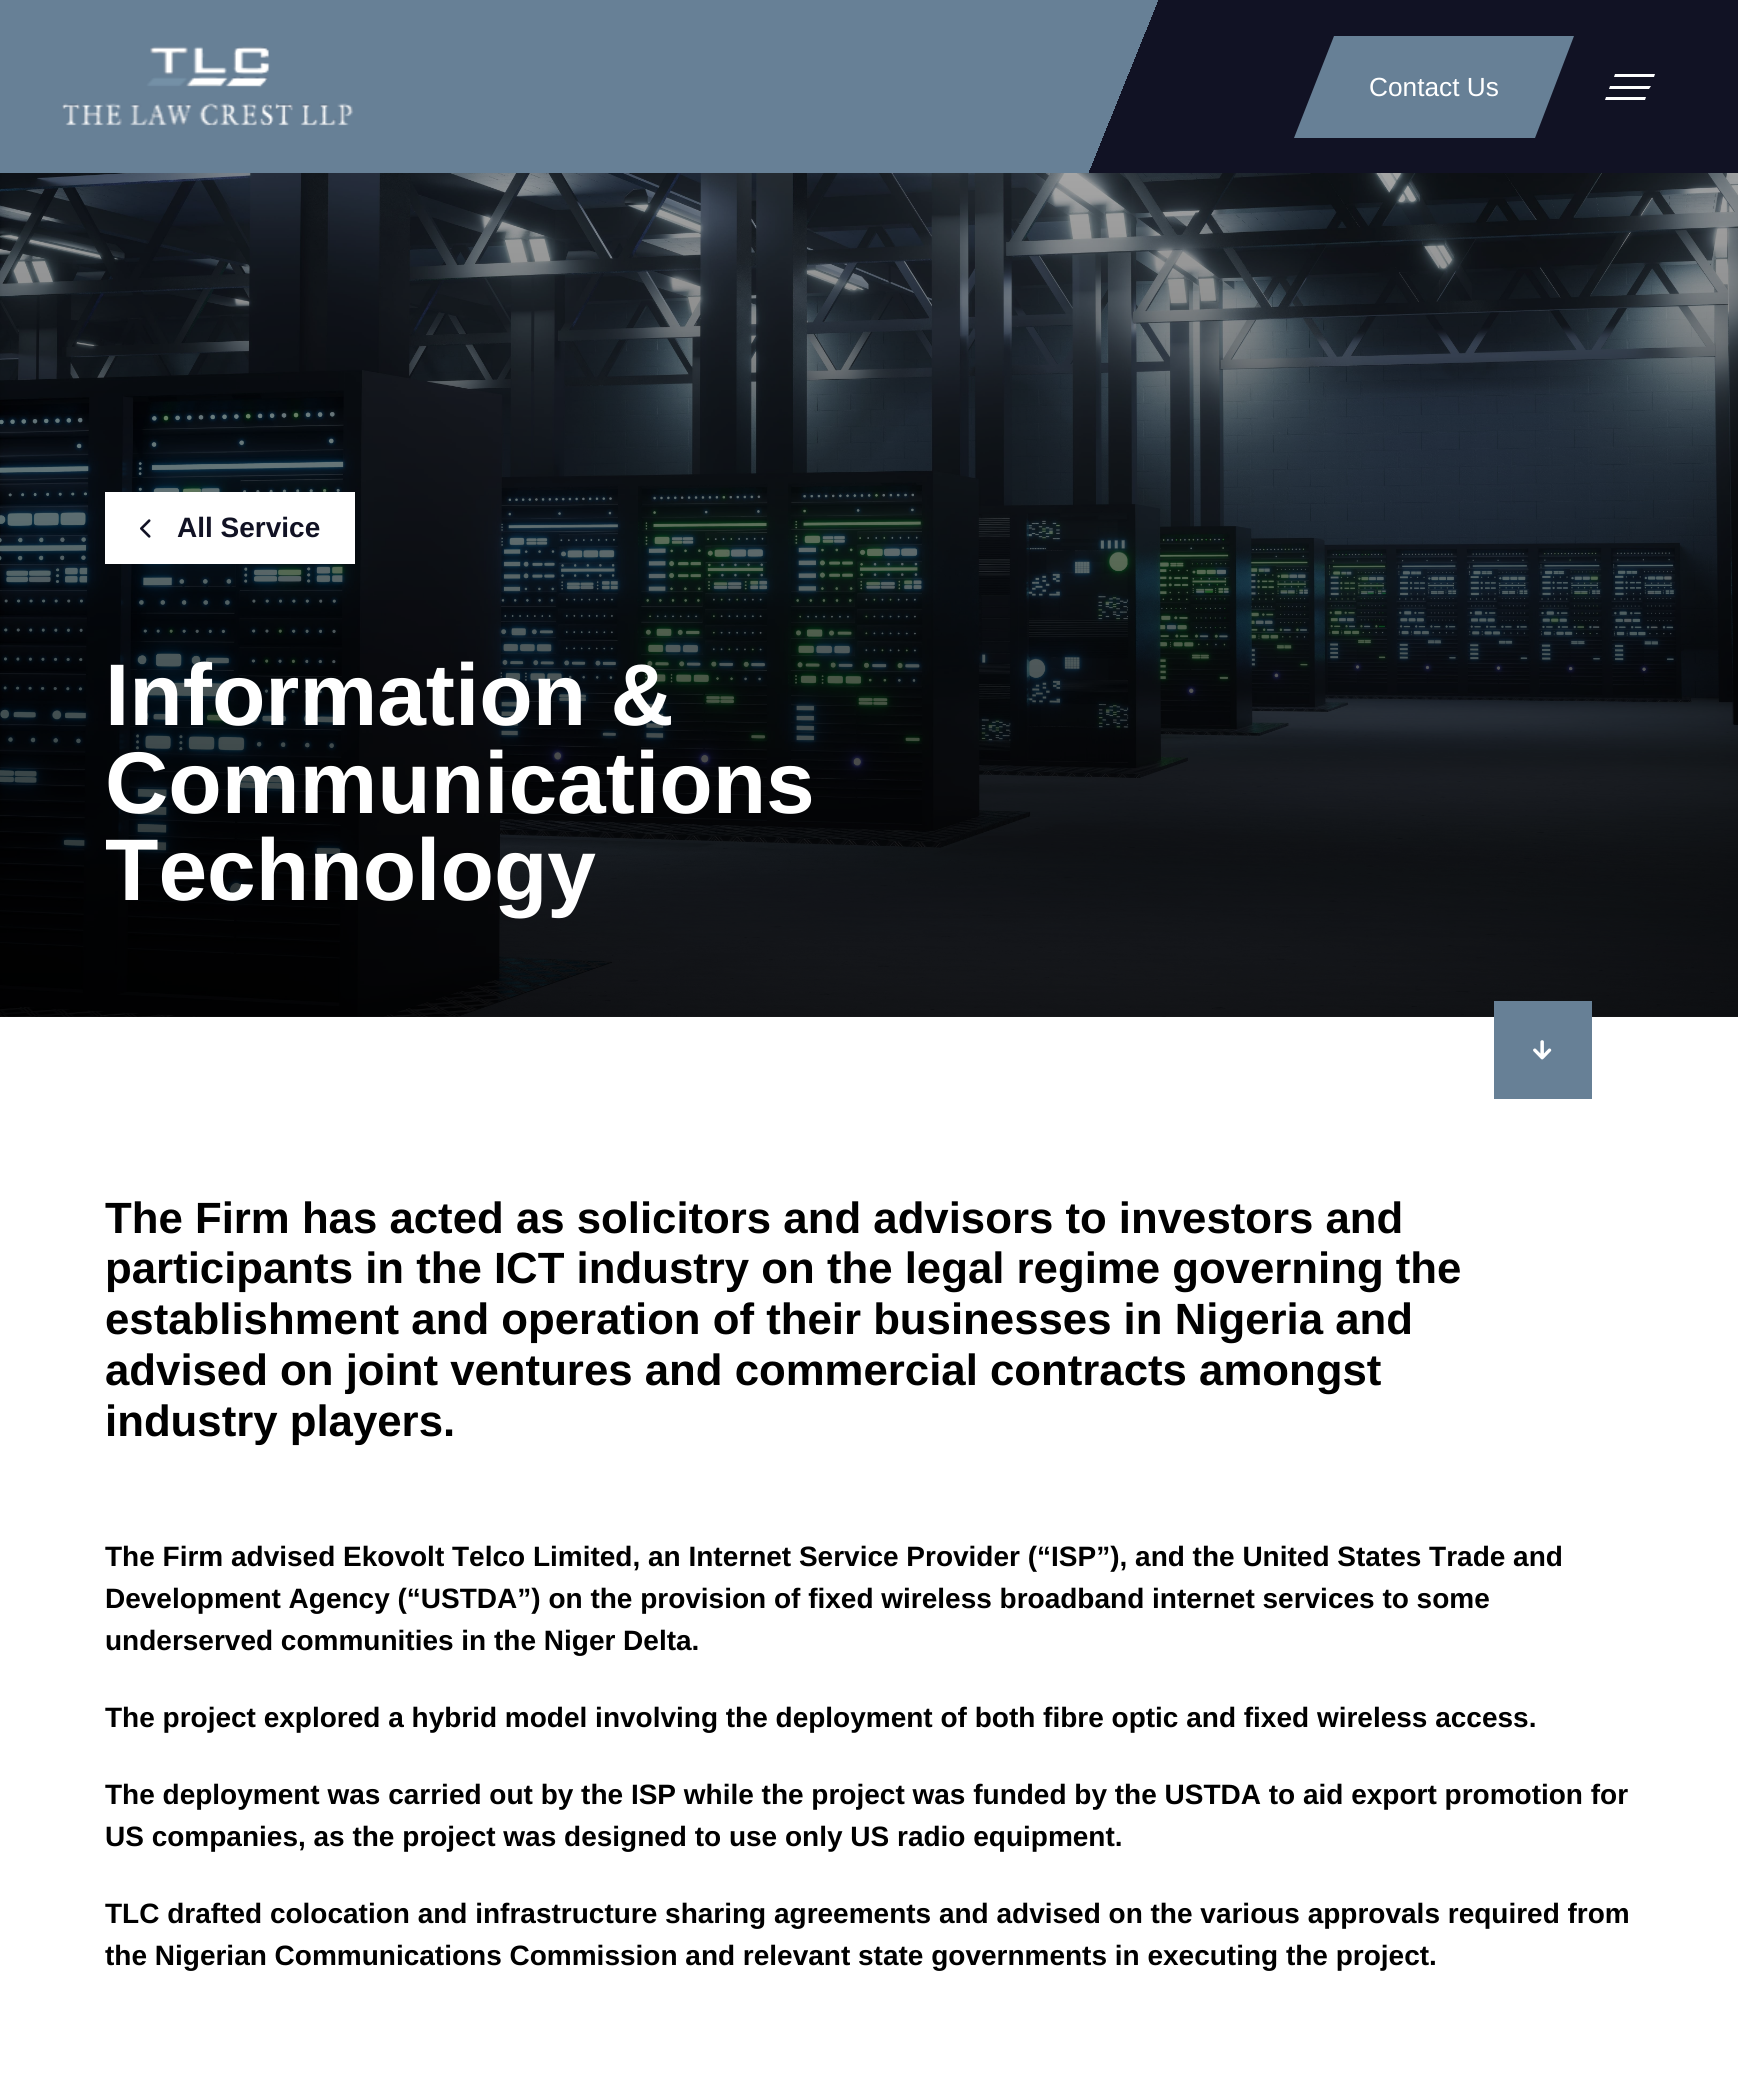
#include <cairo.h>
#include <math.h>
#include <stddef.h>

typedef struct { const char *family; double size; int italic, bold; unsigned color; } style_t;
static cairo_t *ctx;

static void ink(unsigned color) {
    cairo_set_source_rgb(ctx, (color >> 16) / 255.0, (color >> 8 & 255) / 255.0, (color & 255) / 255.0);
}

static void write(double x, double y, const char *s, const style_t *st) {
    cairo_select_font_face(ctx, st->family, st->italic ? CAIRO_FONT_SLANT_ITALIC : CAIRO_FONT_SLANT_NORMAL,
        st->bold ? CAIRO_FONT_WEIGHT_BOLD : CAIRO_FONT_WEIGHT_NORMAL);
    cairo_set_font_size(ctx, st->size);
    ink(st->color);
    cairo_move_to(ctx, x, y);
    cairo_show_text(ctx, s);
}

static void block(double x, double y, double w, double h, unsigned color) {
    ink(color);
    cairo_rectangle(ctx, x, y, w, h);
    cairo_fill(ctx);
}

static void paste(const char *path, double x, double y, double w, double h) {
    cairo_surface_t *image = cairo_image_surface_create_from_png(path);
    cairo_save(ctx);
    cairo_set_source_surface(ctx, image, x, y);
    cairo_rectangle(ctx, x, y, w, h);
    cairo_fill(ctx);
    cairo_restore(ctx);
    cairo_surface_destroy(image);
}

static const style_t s1 = {"Liberation Sans", 26.25, 0, 0, 0xffffff};
static const style_t s2 = {"Liberation Sans", 28, 0, 1, 0x111224};
static const style_t s3 = {"Liberation Sans", 87.5, 0, 1, 0xffffff};
static const style_t s4 = {"Liberation Sans", 43.75, 0, 1, 0x000000};
static const style_t s5 = {"Liberation Sans", 28, 0, 1, 0x000000};

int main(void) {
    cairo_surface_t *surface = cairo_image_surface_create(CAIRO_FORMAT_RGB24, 1738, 2085);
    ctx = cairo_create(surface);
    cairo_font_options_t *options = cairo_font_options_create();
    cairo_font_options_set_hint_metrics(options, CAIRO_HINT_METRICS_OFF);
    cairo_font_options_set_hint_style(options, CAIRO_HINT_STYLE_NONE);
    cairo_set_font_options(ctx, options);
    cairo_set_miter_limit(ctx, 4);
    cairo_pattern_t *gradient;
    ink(0xffffff);
    cairo_paint(ctx);
    gradient = cairo_pattern_create_linear(92, -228, 1648, 401);
    cairo_pattern_add_color_stop_rgba(gradient, 0.64, 0.404, 0.502, 0.588, 1);
    cairo_pattern_add_color_stop_rgba(gradient, 0.64, 0.067, 0.071, 0.141, 1);
    cairo_set_source(ctx, gradient);
    cairo_pattern_destroy(gradient);
    cairo_rectangle(ctx, 0, 0, 1738, 173);
    cairo_fill(ctx);
    paste("pic1.png", 62, 46, 292, 80);
    ink(0x678096);
    cairo_new_path(ctx);
    cairo_move_to(ctx, 1334, 36);
    cairo_line_to(ctx, 1574, 36);
    cairo_line_to(ctx, 1535, 138);
    cairo_line_to(ctx, 1294, 138);
    cairo_close_path(ctx);
    cairo_fill(ctx);
    write(1369, 96, "Contact Us", &s1);
    cairo_new_path(ctx);
    cairo_move_to(ctx, 1605, 100);
    cairo_line_to(ctx, 1606, 97);
    cairo_line_to(ctx, 1646, 97);
    cairo_line_to(ctx, 1645, 100);
    cairo_close_path(ctx);
    cairo_move_to(ctx, 1609, 89);
    cairo_line_to(ctx, 1610, 86);
    cairo_line_to(ctx, 1651, 86);
    cairo_line_to(ctx, 1649, 89);
    cairo_close_path(ctx);
    cairo_move_to(ctx, 1614, 77);
    cairo_line_to(ctx, 1615, 74);
    cairo_line_to(ctx, 1655, 74);
    cairo_line_to(ctx, 1654, 77);
    cairo_close_path(ctx);
    cairo_fill(ctx);
    paste("pic2.png", 0, 173, 1738, 844);
    gradient = cairo_pattern_create_linear(870, 0, 870, 1017);
    cairo_pattern_add_color_stop_rgba(gradient, 0, 0, 0, 0, 0.25);
    cairo_pattern_add_color_stop_rgba(gradient, 1, 0, 0, 0, 0.86);
    cairo_set_source(ctx, gradient);
    cairo_pattern_destroy(gradient);
    cairo_rectangle(ctx, 0, 173, 1738, 844);
    cairo_fill(ctx);
    block(105, 492, 250, 72, 0xffffff);
    paste("pic3.png", 140, 519, 11, 19);
    write(177, 537, "All Service", &s2);
    write(105, 725, "Information &", &s3);
    write(105, 813, "Communications", &s3);
    write(105, 900, "Technology", &s3);
    block(1494, 1001, 98, 98, 0x678096);
    paste("pic4.png", 1533, 1040, 19, 20);
    write(105, 1233, "The Firm has acted as solicitors and advisors to investors and", &s4);
    write(105, 1283, "participants in the ICT industry on the legal regime governing the", &s4);
    write(105, 1334, "establishment and operation of their businesses in Nigeria and", &s4);
    write(105, 1385, "advised on joint ventures and commercial contracts amongst", &s4);
    write(105, 1436, "industry players.", &s4);
    write(105, 1566, "The Firm advised Ekovolt Telco Limited, an Internet Service Provider (“ISP”), and the United States Trade and", &s5);
    write(105, 1608, "Development Agency (“USTDA”) on the provision of fixed wireless broadband internet services to some", &s5);
    write(105, 1650, "underserved communities in the Niger Delta.", &s5);
    write(105, 1727, "The project explored a hybrid model involving the deployment of both fibre optic and fixed wireless access.", &s5);
    write(105, 1804, "The deployment was carried out by the ISP while the project was funded by the USTDA to aid export promotion for", &s5);
    write(105, 1846, "US companies, as the project was designed to use only US radio equipment.", &s5);
    write(105, 1923, "TLC drafted colocation and infrastructure sharing agreements and advised on the various approvals required from", &s5);
    write(105, 1965, "the Nigerian Communications Commission and relevant state governments in executing the project.", &s5);
    cairo_surface_write_to_png(surface, "screenshot.png");
    cairo_font_options_destroy(options);
    cairo_destroy(ctx);
    cairo_surface_destroy(surface);
    return 0;
}
